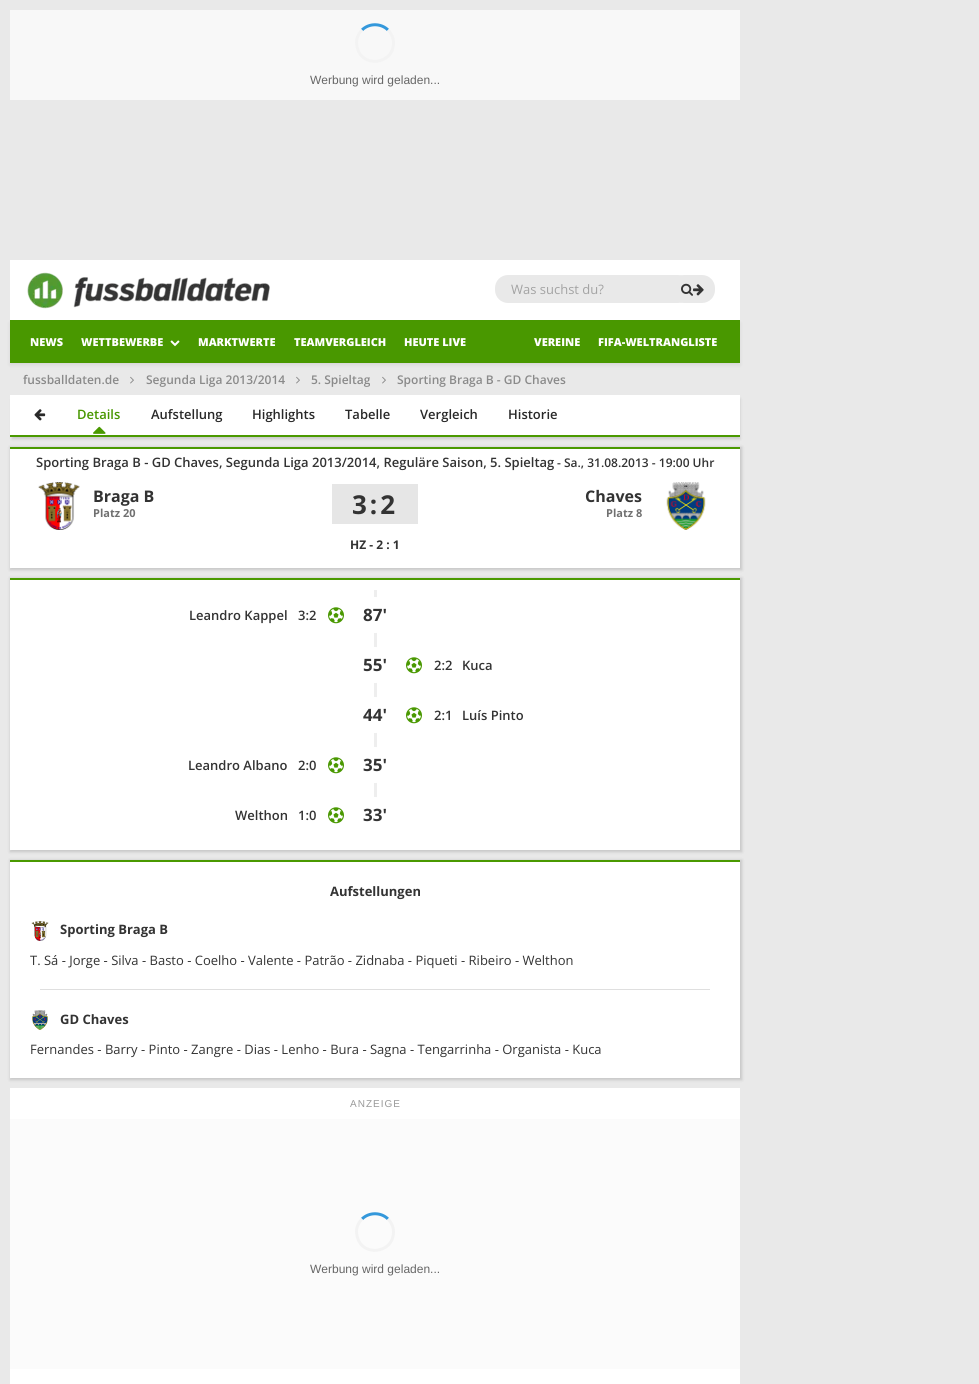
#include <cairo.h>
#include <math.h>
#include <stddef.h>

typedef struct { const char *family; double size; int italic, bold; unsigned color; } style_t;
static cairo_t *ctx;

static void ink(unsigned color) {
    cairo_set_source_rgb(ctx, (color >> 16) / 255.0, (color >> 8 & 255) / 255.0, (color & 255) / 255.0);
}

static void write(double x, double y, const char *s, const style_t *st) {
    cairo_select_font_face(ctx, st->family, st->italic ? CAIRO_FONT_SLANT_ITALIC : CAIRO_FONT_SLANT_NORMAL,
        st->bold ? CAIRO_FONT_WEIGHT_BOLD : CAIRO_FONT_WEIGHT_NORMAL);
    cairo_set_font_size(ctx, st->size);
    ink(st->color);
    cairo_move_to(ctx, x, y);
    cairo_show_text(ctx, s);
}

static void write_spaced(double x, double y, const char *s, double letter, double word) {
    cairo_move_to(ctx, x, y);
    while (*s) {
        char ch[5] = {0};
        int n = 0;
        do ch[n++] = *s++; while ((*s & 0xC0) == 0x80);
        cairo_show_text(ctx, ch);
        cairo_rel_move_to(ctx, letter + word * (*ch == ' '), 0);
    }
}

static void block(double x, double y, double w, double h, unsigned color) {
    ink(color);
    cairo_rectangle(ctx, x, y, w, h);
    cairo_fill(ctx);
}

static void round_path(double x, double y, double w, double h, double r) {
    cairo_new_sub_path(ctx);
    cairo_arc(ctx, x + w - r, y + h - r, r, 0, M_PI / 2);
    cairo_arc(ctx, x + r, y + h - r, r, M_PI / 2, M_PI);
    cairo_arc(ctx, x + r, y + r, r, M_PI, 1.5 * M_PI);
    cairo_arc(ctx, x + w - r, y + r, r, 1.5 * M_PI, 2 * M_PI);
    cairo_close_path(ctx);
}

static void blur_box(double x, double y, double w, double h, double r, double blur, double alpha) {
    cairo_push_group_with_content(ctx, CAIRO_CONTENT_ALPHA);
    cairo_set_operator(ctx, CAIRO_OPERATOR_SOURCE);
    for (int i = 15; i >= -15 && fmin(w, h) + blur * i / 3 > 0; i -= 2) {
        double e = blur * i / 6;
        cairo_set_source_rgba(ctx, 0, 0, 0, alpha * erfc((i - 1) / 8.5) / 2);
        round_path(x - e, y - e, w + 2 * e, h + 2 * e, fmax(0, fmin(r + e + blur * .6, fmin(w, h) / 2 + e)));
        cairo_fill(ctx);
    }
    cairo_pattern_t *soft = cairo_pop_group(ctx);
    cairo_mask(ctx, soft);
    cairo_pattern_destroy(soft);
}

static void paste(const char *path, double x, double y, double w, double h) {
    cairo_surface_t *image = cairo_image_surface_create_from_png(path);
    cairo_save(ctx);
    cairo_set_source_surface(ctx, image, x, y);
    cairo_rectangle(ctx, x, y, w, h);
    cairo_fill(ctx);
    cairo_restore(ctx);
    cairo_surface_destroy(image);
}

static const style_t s1 = {"Liberation Sans", 12, 0, 0, 0x666666};
static const style_t s2 = {"Open Sans", 13, 0, 0, 0xa3a3a3};
static const style_t s3 = {"Open Sans ExtraBold", 11, 0, 0, 0xffffff};
static const style_t s4 = {"Open Sans SemiBold", 12, 0, 0, 0x8a8a8a};
static const style_t s5 = {"Open Sans SemiBold", 13, 0, 0, 0x489700};
static const style_t s6 = {"Open Sans SemiBold", 13, 0, 0, 0x292929};
static const style_t s7 = {"Open Sans SemiBold", 13, 0, 0, 0x333333};
static const style_t s8 = {"Open Sans SemiBold", 12, 0, 0, 0x333333};
static const style_t s9 = {"Open Sans", 16, 0, 1, 0x333333};
static const style_t s10 = {"Open Sans", 11, 0, 1, 0x707070};
static const style_t s11 = {"Open Sans", 12, 0, 1, 0x333333};
static const style_t s12 = {"Open Sans", 17, 0, 1, 0x333333};
static const style_t s13 = {"Open Sans", 13, 0, 1, 0x333333};
static const style_t s14 = {"Open Sans", 13, 0, 0, 0x333333};

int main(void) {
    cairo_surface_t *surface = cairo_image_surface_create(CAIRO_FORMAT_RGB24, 979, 1384);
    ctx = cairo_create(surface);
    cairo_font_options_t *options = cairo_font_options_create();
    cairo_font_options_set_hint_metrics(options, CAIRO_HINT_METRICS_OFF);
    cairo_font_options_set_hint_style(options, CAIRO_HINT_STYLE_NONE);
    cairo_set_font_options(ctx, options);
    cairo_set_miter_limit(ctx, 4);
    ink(0xe9e9e9);
    cairo_paint(ctx);
    block(10, 10, 730, 90, 0xf8f8f8);
    cairo_new_path(ctx);
    cairo_move_to(ctx, 362, 30);
    cairo_curve_to(ctx, 369, 23, 381, 23, 388, 30);
    ink(0x3498db);
    cairo_set_line_width(ctx, 3);
    cairo_stroke(ctx);
    cairo_new_path(ctx);
    cairo_move_to(ctx, 388, 30);
    cairo_curve_to(ctx, 391.5, 33.5, 393.5, 38, 393.5, 43);
    cairo_curve_to(ctx, 393.5, 65, 361, 68.5, 357, 46.5);
    cairo_curve_to(ctx, 355.5, 40.5, 357.5, 34.5, 362, 30);
    ink(0xf3f3f3);
    cairo_stroke(ctx);
    write(310, 84, "Werbung wird geladen...", &s1);
    block(10, 260, 730, 60, 0xffffff);
    block(10, 320, 730, 1, 0x499801);
    paste("pic1.png", 27, 272, 243, 37);
    ink(0xe9e9e9);
    round_path(495, 275, 196, 28, 13);
    cairo_fill(ctx);
    write(511, 294, "Was suchst du?", &s2);
    ink(0xe9e9e9);
    round_path(671, 275, 44, 28, 13);
    cairo_fill(ctx);
    paste("pic2.png", 681, 283, 12, 13);
    paste("pic3.png", 693, 284, 11, 12);
    ink(0x000000);
    blur_box(10, 323, 730, 42, 0, 2, 0.08);
    block(10, 321, 730, 42, 0x499800);
    write(30, 346, "NEWS", &s3);
    write(81, 346, "WETTBEWERBE", &s3);
    paste("pic4.png", 170, 340, 10, 7);
    write(198, 346, "MARKTWERTE", &s3);
    write(294, 346, "TEAMVERGLEICH", &s3);
    write(404, 346, "HEUTE LIVE", &s3);
    write(534, 346, "VEREINE", &s3);
    write(598, 346, "FIFA-WELTRANGLISTE", &s3);
    write(23, 384, "fussballdaten.de", &s4);
    paste("pic5.png", 130, 376, 4, 8);
    write(146, 384, "Segunda Liga 2013/2014", &s4);
    paste("pic5.png", 296, 376, 4, 8);
    cairo_save(ctx);
    cairo_rectangle(ctx, 311, 371, 59, 17);
    cairo_clip(ctx);
    write(311, 384, "5. Spieltag", &s4);
    cairo_restore(ctx);
    paste("pic5.png", 382, 376, 4, 8);
    write(397, 384, "Sporting Braga B - GD Chaves", &s4);
    block(10, 395, 730, 40, 0xffffff);
    cairo_save(ctx);
    cairo_set_fill_rule(ctx, CAIRO_FILL_RULE_EVEN_ODD);
    cairo_new_path(ctx);
    cairo_move_to(ctx, 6, 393);
    cairo_line_to(ctx, 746, 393);
    cairo_line_to(ctx, 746, 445);
    cairo_line_to(ctx, 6, 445);
    cairo_close_path(ctx);
    cairo_move_to(ctx, 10, 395);
    cairo_line_to(ctx, 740, 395);
    cairo_line_to(ctx, 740, 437);
    cairo_line_to(ctx, 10, 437);
    cairo_close_path(ctx);
    cairo_clip(ctx);
    ink(0x000000);
    blur_box(12, 399, 728, 40, 0, 1.5, 0.15);
    cairo_restore(ctx);
    block(10, 435, 730, 2, 0x4a9900);
    paste("pic6.png", 34, 409, 12, 12);
    write(77, 419, "Details", &s5);
    paste("pic7.png", 93, 426, 13, 8);
    write(151, 419, "Aufstellung", &s6);
    write(252, 419, "Highlights", &s6);
    write(345, 419, "Tabelle", &s6);
    write(420, 419, "Vergleich", &s6);
    write(508, 419, "Historie", &s6);
    ink(0x000000);
    blur_box(10, 447, 732, 123, 0, 1.5, 0.15);
    block(10, 449, 730, 119, 0xffffff);
    block(10, 447, 730, 2, 0x4a9900);
    write(36, 467, "Sporting Braga B - GD Chaves, Segunda Liga 2013/2014, Reguläre Saison, 5. Spieltag", &s7);
    write(557, 467, "- Sa., 31.08.2013 - 19:00 Uhr", &s8);
    paste("pic8.png", 38, 482, 42, 48);
    write(93, 502, "Braga B", &s9);
    write(93, 517, "Platz 20", &s10);
    block(332, 484, 86, 40, 0xe6e6e6);
    cairo_set_font_size(ctx, 26);
    ink(0x333333);
    write_spaced(352, 514, "3:2", 3, 0);
    write(585, 502, "Chaves", &s9);
    write(606, 517, "Platz 8", &s10);
    paste("pic9.png", 666, 482, 40, 48);
    write(350, 549, "HZ - 2 : 1", &s11);
    ink(0x000000);
    blur_box(10, 578, 732, 274, 0, 1.5, 0.15);
    block(10, 580, 730, 270, 0xffffff);
    block(10, 578, 730, 2, 0x4a9900);
    block(374, 590, 3, 208, 0xeeeeee);
    write(189, 620, "Leandro Kappel", &s7);
    write(298, 620, "3:2", &s7);
    paste("pic10.png", 328, 607, 16, 17);
    ink(0xffffff);
    cairo_new_path(ctx);
    cairo_move_to(ctx, 375, 597);
    cairo_curve_to(ctx, 389, 597, 400, 605, 400, 615);
    cairo_curve_to(ctx, 400, 625, 389, 633, 375, 633);
    cairo_curve_to(ctx, 361, 633, 350, 625, 350, 615);
    cairo_curve_to(ctx, 350, 605, 361, 597, 375, 597);
    cairo_close_path(ctx);
    cairo_fill(ctx);
    write(363, 621, "87'", &s12);
    ink(0xffffff);
    cairo_new_path(ctx);
    cairo_move_to(ctx, 375, 647);
    cairo_curve_to(ctx, 389, 647, 400, 655, 400, 665);
    cairo_curve_to(ctx, 400, 675, 389, 683, 375, 683);
    cairo_curve_to(ctx, 361, 683, 350, 675, 350, 665);
    cairo_curve_to(ctx, 350, 655, 361, 647, 375, 647);
    cairo_close_path(ctx);
    cairo_fill(ctx);
    write(363, 671, "55'", &s12);
    paste("pic10.png", 406, 657, 16, 17);
    write(434, 670, "2:2", &s7);
    write(462, 670, "Kuca", &s7);
    ink(0xffffff);
    cairo_new_path(ctx);
    cairo_move_to(ctx, 375, 697);
    cairo_curve_to(ctx, 389, 697, 400, 705, 400, 715);
    cairo_curve_to(ctx, 400, 725, 389, 733, 375, 733);
    cairo_curve_to(ctx, 361, 733, 350, 725, 350, 715);
    cairo_curve_to(ctx, 350, 705, 361, 697, 375, 697);
    cairo_close_path(ctx);
    cairo_fill(ctx);
    write(363, 721, "44'", &s12);
    paste("pic10.png", 406, 707, 16, 17);
    write(434, 720, "2:1", &s7);
    write(462, 720, "Luís Pinto", &s7);
    write(188, 770, "Leandro Albano", &s7);
    write(298, 770, "2:0", &s7);
    paste("pic10.png", 328, 757, 16, 17);
    ink(0xffffff);
    cairo_new_path(ctx);
    cairo_move_to(ctx, 375, 747);
    cairo_curve_to(ctx, 389, 747, 400, 755, 400, 765);
    cairo_curve_to(ctx, 400, 775, 389, 783, 375, 783);
    cairo_curve_to(ctx, 361, 783, 350, 775, 350, 765);
    cairo_curve_to(ctx, 350, 755, 361, 747, 375, 747);
    cairo_close_path(ctx);
    cairo_fill(ctx);
    write(363, 771, "35'", &s12);
    write(235, 820, "Welthon", &s7);
    write(298, 820, "1:0", &s7);
    paste("pic10.png", 328, 807, 16, 17);
    ink(0xffffff);
    cairo_new_path(ctx);
    cairo_move_to(ctx, 375, 797);
    cairo_curve_to(ctx, 389, 797, 400, 805, 400, 815);
    cairo_curve_to(ctx, 400, 825, 389, 833, 375, 833);
    cairo_curve_to(ctx, 361, 833, 350, 825, 350, 815);
    cairo_curve_to(ctx, 350, 805, 361, 797, 375, 797);
    cairo_close_path(ctx);
    cairo_fill(ctx);
    write(363, 821, "33'", &s12);
    ink(0x000000);
    blur_box(10, 860, 732, 220, 0, 1.5, 0.15);
    block(10, 862, 730, 216, 0xffffff);
    block(10, 860, 730, 2, 0x4a9900);
    write(330, 896, "Aufstellungen", &s13);
    paste("pic11.png", 31, 921, 18, 20);
    write(60, 934, "Sporting Braga B", &s13);
    write(30, 965, "T. Sá - Jorge - Silva - Basto - Coelho - Valente - Patrão - Zidnaba - Piqueti - Ribeiro - Welthon", &s14);
    block(40, 989, 670, 1, 0xdfdfdf);
    paste("pic12.png", 32, 1010, 16, 20);
    write(60, 1024, "GD Chaves", &s13);
    write(30, 1054, "Fernandes - Barry - Pinto - Zangre - Dias - Lenho - Bura - Sagna - Tengarrinha - Organista - Kuca", &s14);
    block(10, 1088, 730, 296, 0xffffff);
    cairo_select_font_face(ctx, "Liberation Sans", CAIRO_FONT_SLANT_NORMAL, CAIRO_FONT_WEIGHT_NORMAL);
    cairo_set_font_size(ctx, 10);
    ink(0x999999);
    write_spaced(350, 1107, "ANZEIGE", 1, 0);
    block(10, 1119, 730, 250, 0xfbfbfb);
    cairo_new_path(ctx);
    cairo_move_to(ctx, 362, 1219);
    cairo_curve_to(ctx, 369, 1212, 381, 1212, 388, 1219);
    ink(0x3498db);
    cairo_stroke(ctx);
    cairo_new_path(ctx);
    cairo_move_to(ctx, 388, 1219);
    cairo_curve_to(ctx, 391.5, 1222.5, 393.5, 1227, 393.5, 1232);
    cairo_curve_to(ctx, 393.5, 1254, 361, 1257.5, 357, 1235.5);
    cairo_curve_to(ctx, 355.5, 1229.5, 357.5, 1223.5, 362, 1219);
    ink(0xf3f3f3);
    cairo_stroke(ctx);
    write(310, 1273, "Werbung wird geladen...", &s1);
    cairo_surface_write_to_png(surface, "screenshot.png");
    cairo_font_options_destroy(options);
    cairo_destroy(ctx);
    cairo_surface_destroy(surface);
    return 0;
}
